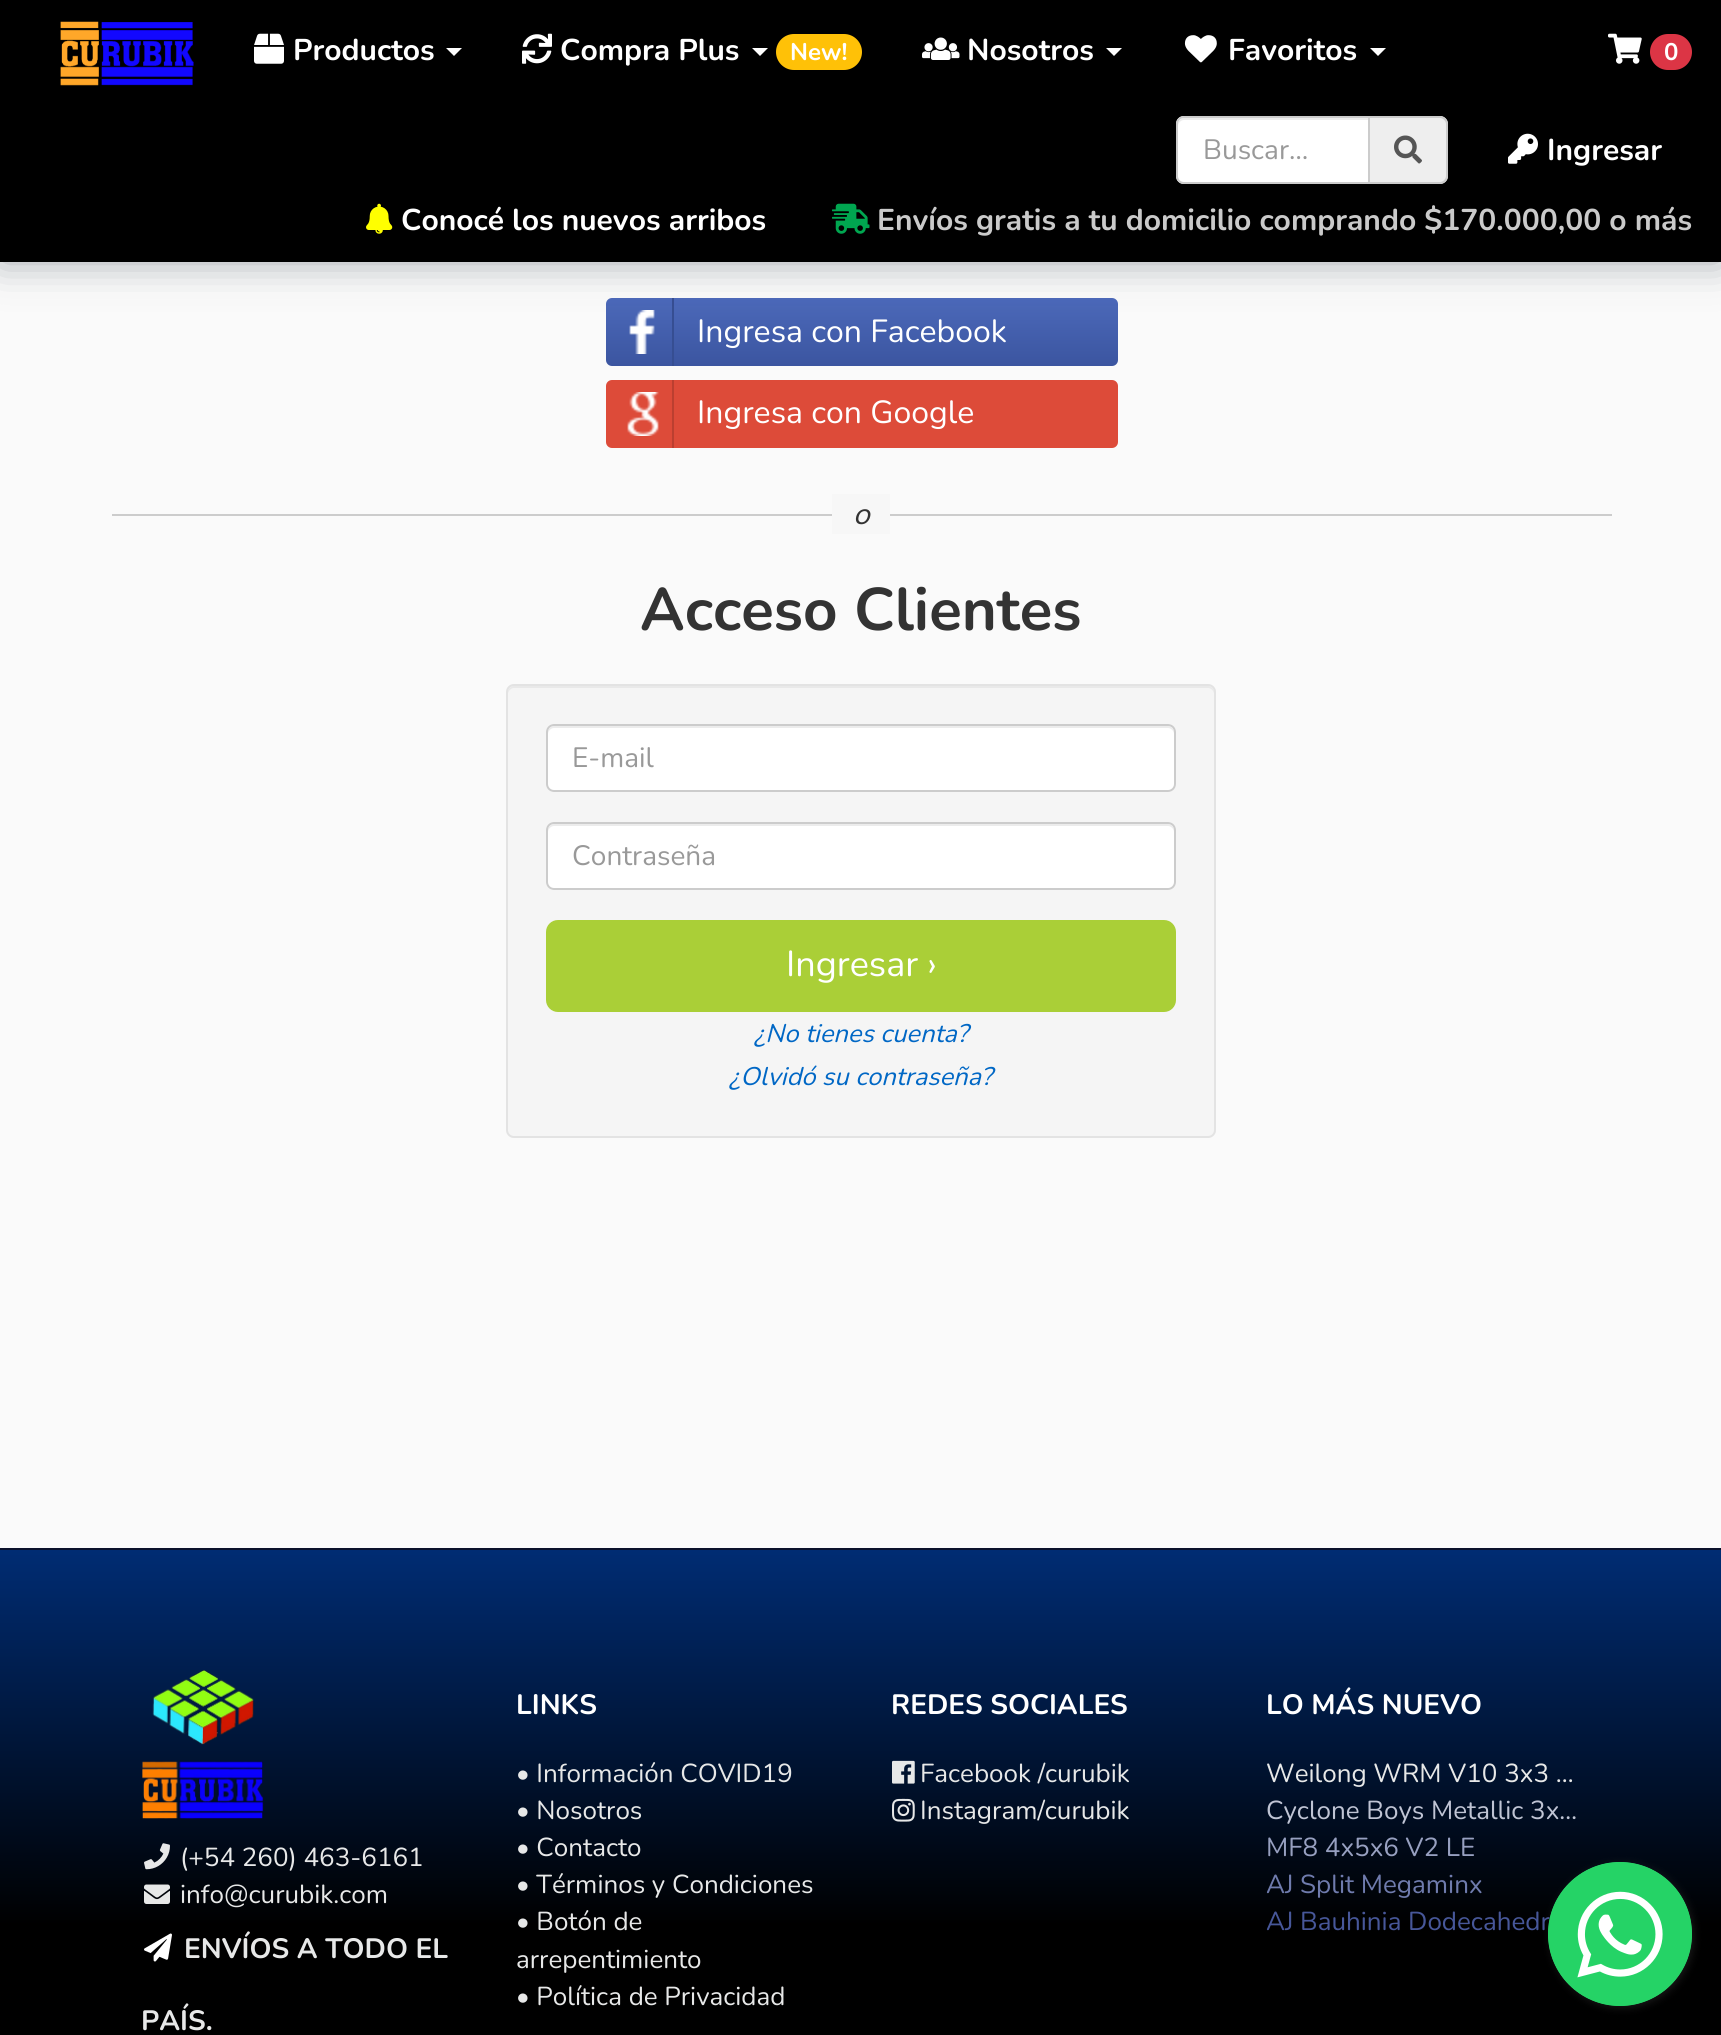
#include <cairo.h>
#include <math.h>
#include <stddef.h>

typedef struct { const char *family; double size; int italic, bold; unsigned color; } style_t;
static cairo_t *ctx;

static void ink(unsigned color) {
    cairo_set_source_rgb(ctx, (color >> 16) / 255.0, (color >> 8 & 255) / 255.0, (color & 255) / 255.0);
}

static void write(double x, double y, const char *s, const style_t *st) {
    cairo_select_font_face(ctx, st->family, st->italic ? CAIRO_FONT_SLANT_ITALIC : CAIRO_FONT_SLANT_NORMAL,
        st->bold ? CAIRO_FONT_WEIGHT_BOLD : CAIRO_FONT_WEIGHT_NORMAL);
    cairo_set_font_size(ctx, st->size);
    ink(st->color);
    cairo_move_to(ctx, x, y);
    cairo_show_text(ctx, s);
}

static void block(double x, double y, double w, double h, unsigned color) {
    ink(color);
    cairo_rectangle(ctx, x, y, w, h);
    cairo_fill(ctx);
}

static void round_path(double x, double y, double w, double h, double r) {
    cairo_new_sub_path(ctx);
    cairo_arc(ctx, x + w - r, y + h - r, r, 0, M_PI / 2);
    cairo_arc(ctx, x + r, y + h - r, r, M_PI / 2, M_PI);
    cairo_arc(ctx, x + r, y + r, r, M_PI, 1.5 * M_PI);
    cairo_arc(ctx, x + w - r, y + r, r, 1.5 * M_PI, 2 * M_PI);
    cairo_close_path(ctx);
}

static void blur_box(double x, double y, double w, double h, double r, double blur, double alpha) {
    cairo_push_group_with_content(ctx, CAIRO_CONTENT_ALPHA);
    cairo_set_operator(ctx, CAIRO_OPERATOR_SOURCE);
    for (int i = 15; i >= -15 && fmin(w, h) + blur * i / 3 > 0; i -= 2) {
        double e = blur * i / 6;
        cairo_set_source_rgba(ctx, 0, 0, 0, alpha * erfc((i - 1) / 8.5) / 2);
        round_path(x - e, y - e, w + 2 * e, h + 2 * e, fmax(0, fmin(r + e + blur * .6, fmin(w, h) / 2 + e)));
        cairo_fill(ctx);
    }
    cairo_pattern_t *soft = cairo_pop_group(ctx);
    cairo_mask(ctx, soft);
    cairo_pattern_destroy(soft);
}

static void paste(const char *path, double x, double y, double w, double h) {
    cairo_surface_t *image = cairo_image_surface_create_from_png(path);
    cairo_save(ctx);
    cairo_set_source_surface(ctx, image, x, y);
    cairo_rectangle(ctx, x, y, w, h);
    cairo_fill(ctx);
    cairo_restore(ctx);
    cairo_surface_destroy(image);
}

static const style_t s1 = {"Nunito", 30, 0, 1, 0xffffff};
static const style_t s2 = {"Nunito", 24, 0, 1, 0xffffff};
static const style_t s3 = {"Nunito", 28, 0, 0, 0x999999};
static const style_t s4 = {"Nunito", 30, 0, 1, 0xcacaca};
static const style_t s5 = {"Nunito", 32, 0, 0, 0xffffff};
static const style_t s6 = {"Nunito", 30, 1, 0, 0x333333};
static const style_t s7 = {"Nunito", 60, 0, 1, 0x333333};
static const style_t s8 = {"Nunito", 36, 0, 0, 0xffffff};
static const style_t s9 = {"Nunito", 25.5, 1, 0, 0x0067c5};
static const style_t s10 = {"Nunito", 28, 0, 1, 0xffffff};
static const style_t s11 = {"Nunito", 26, 0, 0, 0xe7e8e8};
static const style_t s12 = {"Nunito", 26, 0, 0, 0xbfc4d4};
static const style_t s13 = {"Nunito", 26, 0, 0, 0x97a0c0};
static const style_t s14 = {"Nunito", 26, 0, 0, 0x6f7bad};
static const style_t s15 = {"Nunito", 26, 0, 0, 0x475799};
static const style_t s16 = {"Nunito", 28, 0, 1, 0xe7e8e8};

int main(void) {
    cairo_surface_t *surface = cairo_image_surface_create(CAIRO_FORMAT_RGB24, 1721, 2035);
    ctx = cairo_create(surface);
    cairo_font_options_t *options = cairo_font_options_create();
    cairo_font_options_set_hint_metrics(options, CAIRO_HINT_METRICS_OFF);
    cairo_font_options_set_hint_style(options, CAIRO_HINT_STYLE_NONE);
    cairo_set_font_options(ctx, options);
    cairo_set_miter_limit(ctx, 4);
    cairo_pattern_t *gradient;
    ink(0xfafafa);
    cairo_paint(ctx);
    gradient = cairo_pattern_create_linear(862, 298, 862, 366);
    cairo_pattern_add_color_stop_rgba(gradient, 0, 0.298, 0.412, 0.729, 1);
    cairo_pattern_add_color_stop_rgba(gradient, 1, 0.231, 0.333, 0.627, 1);
    cairo_set_source(ctx, gradient);
    cairo_pattern_destroy(gradient);
    round_path(606, 298, 512, 68, 6);
    cairo_fill(ctx);
    paste("pic11.png", 629, 310, 26, 44);
    block(672, 298, 2, 68, 0x364e92);
    ink(0x232f3e);
    blur_box(0, 0, 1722, 262, 0, 20, 0.4);
    block(0, 0, 1721, 262, 0x000000);
    paste("pic1.png", 60, 21, 134, 65);
    paste("pic2.png", 254, 33, 30, 31);
    write(293, 60, "Productos", &s1);
    cairo_new_path(ctx);
    cairo_move_to(ctx, 446, 48);
    cairo_line_to(ctx, 462, 48);
    cairo_line_to(ctx, 454, 56);
    cairo_close_path(ctx);
    cairo_fill(ctx);
    paste("pic3.png", 522, 33, 30, 31);
    write(560, 60, "Compra Plus", &s1);
    cairo_new_path(ctx);
    cairo_move_to(ctx, 752, 48);
    cairo_line_to(ctx, 768, 48);
    cairo_line_to(ctx, 760, 56);
    cairo_close_path(ctx);
    cairo_fill(ctx);
    ink(0xffc107);
    round_path(776, 34, 86, 36, 18);
    cairo_fill(ctx);
    write(790, 60, "New!", &s2);
    paste("pic4.png", 922, 37, 38, 23);
    write(967, 60, "Nosotros", &s1);
    cairo_new_path(ctx);
    cairo_move_to(ctx, 1106, 48);
    cairo_line_to(ctx, 1122, 48);
    cairo_line_to(ctx, 1114, 56);
    cairo_close_path(ctx);
    cairo_fill(ctx);
    paste("pic5.png", 1184, 35, 33, 28);
    write(1228, 60, "Favoritos", &s1);
    cairo_new_path(ctx);
    cairo_move_to(ctx, 1370, 48);
    cairo_line_to(ctx, 1386, 48);
    cairo_line_to(ctx, 1378, 56);
    cairo_close_path(ctx);
    cairo_fill(ctx);
    paste("pic6.png", 1608, 33, 34, 31);
    ink(0xdc3545);
    round_path(1650, 34, 42, 36, 18);
    cairo_fill(ctx);
    write(1664, 60, "0", &s2);
    cairo_new_path(ctx);
    cairo_move_to(ctx, 1184, 116);
    cairo_line_to(ctx, 1370, 116);
    cairo_line_to(ctx, 1370, 184);
    cairo_line_to(ctx, 1184, 184);
    cairo_curve_to(ctx, 1179.5, 184, 1176, 180.5, 1176, 176);
    cairo_line_to(ctx, 1176, 124);
    cairo_curve_to(ctx, 1176, 119.5, 1179.5, 116, 1184, 116);
    cairo_close_path(ctx);
    cairo_fill(ctx);
    ink(0xececec);
    cairo_new_path(ctx);
    cairo_move_to(ctx, 1184, 120);
    cairo_line_to(ctx, 1368, 120);
    cairo_line_to(ctx, 1368, 118);
    cairo_line_to(ctx, 1184, 118);
    cairo_curve_to(ctx, 1181, 118, 1178, 121, 1178, 124);
    cairo_line_to(ctx, 1178, 126);
    cairo_curve_to(ctx, 1178, 123, 1181, 120, 1184, 120);
    cairo_close_path(ctx);
    cairo_fill(ctx);
    cairo_new_path(ctx);
    cairo_move_to(ctx, 1184, 117);
    cairo_line_to(ctx, 1369, 117);
    cairo_line_to(ctx, 1369, 183);
    cairo_line_to(ctx, 1184, 183);
    cairo_curve_to(ctx, 1180, 183, 1177, 180, 1177, 176);
    cairo_line_to(ctx, 1177, 124);
    cairo_curve_to(ctx, 1177, 120, 1180, 117, 1184, 117);
    cairo_close_path(ctx);
    ink(0xcccccc);
    cairo_stroke(ctx);
    write(1203, 159, "Buscar…", &s3);
    ink(0xeeeeee);
    cairo_new_path(ctx);
    cairo_move_to(ctx, 1370, 116);
    cairo_line_to(ctx, 1440, 116);
    cairo_curve_to(ctx, 1444.5, 116, 1448, 119.5, 1448, 124);
    cairo_line_to(ctx, 1448, 176);
    cairo_curve_to(ctx, 1448, 180.5, 1444.5, 184, 1440, 184);
    cairo_line_to(ctx, 1370, 184);
    cairo_close_path(ctx);
    cairo_fill(ctx);
    ink(0xcccccc);
    cairo_set_fill_rule(ctx, CAIRO_FILL_RULE_EVEN_ODD);
    cairo_new_path(ctx);
    cairo_move_to(ctx, 1370, 116);
    cairo_line_to(ctx, 1440, 116);
    cairo_curve_to(ctx, 1444, 116, 1448, 120, 1448, 124);
    cairo_line_to(ctx, 1448, 176);
    cairo_curve_to(ctx, 1448, 180, 1444, 184, 1440, 184);
    cairo_line_to(ctx, 1370, 184);
    cairo_close_path(ctx);
    cairo_move_to(ctx, 1370, 118);
    cairo_line_to(ctx, 1440, 118);
    cairo_curve_to(ctx, 1443, 118, 1446, 121, 1446, 124);
    cairo_line_to(ctx, 1446, 176);
    cairo_curve_to(ctx, 1446, 179, 1443, 182, 1440, 182);
    cairo_line_to(ctx, 1370, 182);
    cairo_close_path(ctx);
    cairo_fill(ctx);
    paste("pic7.png", 1394, 135, 28, 29);
    paste("pic8.png", 1508, 133, 30, 31);
    write(1547, 160, "Ingresar", &s1);
    paste("pic9.png", 366, 203, 27, 31);
    write(401, 230, "Conocé los nuevos arribos", &s1);
    paste("pic10.png", 832, 203, 38, 31);
    write(877, 230, "Envíos gratis a tu domicilio comprando $170.000,00 o más", &s4);
    write(697, 342, "Ingresa con Facebook", &s5);
    ink(0xdd4b39);
    round_path(606, 380, 512, 68, 6);
    cairo_fill(ctx);
    paste("pic12.png", 627, 392, 32, 44);
    block(672, 380, 2, 68, 0xbb3f30);
    write(697, 423, "Ingresa con Google", &s5);
    block(112, 514, 1500, 2, 0xcccccc);
    block(832, 494, 58, 40, 0xf7f7f7);
    write(853, 524, "o", &s6);
    write(640, 630, "Acceso Clientes", &s7);
    ink(0xf5f5f5);
    round_path(506, 684, 710, 454, 8);
    cairo_fill(ctx);
    ink(0xe9e9e9);
    cairo_set_fill_rule(ctx, CAIRO_FILL_RULE_WINDING);
    cairo_new_path(ctx);
    cairo_move_to(ctx, 514, 688);
    cairo_line_to(ctx, 1208, 688);
    cairo_curve_to(ctx, 1211, 688, 1214, 691, 1214, 694);
    cairo_line_to(ctx, 1214, 692);
    cairo_curve_to(ctx, 1214, 689, 1211, 686, 1208, 686);
    cairo_line_to(ctx, 514, 686);
    cairo_curve_to(ctx, 511, 686, 508, 689, 508, 692);
    cairo_line_to(ctx, 508, 694);
    cairo_curve_to(ctx, 508, 691, 511, 688, 514, 688);
    cairo_close_path(ctx);
    cairo_fill(ctx);
    round_path(507, 685, 708, 452, 7);
    ink(0xe3e3e3);
    cairo_stroke(ctx);
    ink(0xffffff);
    round_path(546, 724, 630, 68, 8);
    cairo_fill(ctx);
    ink(0xececec);
    cairo_new_path(ctx);
    cairo_move_to(ctx, 554, 728);
    cairo_line_to(ctx, 1168, 728);
    cairo_curve_to(ctx, 1171, 728, 1174, 731, 1174, 734);
    cairo_line_to(ctx, 1174, 732);
    cairo_curve_to(ctx, 1174, 729, 1171, 726, 1168, 726);
    cairo_line_to(ctx, 554, 726);
    cairo_curve_to(ctx, 551, 726, 548, 729, 548, 732);
    cairo_line_to(ctx, 548, 734);
    cairo_curve_to(ctx, 548, 731, 551, 728, 554, 728);
    cairo_close_path(ctx);
    cairo_fill(ctx);
    round_path(547, 725, 628, 66, 7);
    ink(0xcccccc);
    cairo_stroke(ctx);
    write(572, 767, "E-mail", &s3);
    ink(0xffffff);
    round_path(546, 822, 630, 68, 8);
    cairo_fill(ctx);
    ink(0xececec);
    cairo_new_path(ctx);
    cairo_move_to(ctx, 554, 826);
    cairo_line_to(ctx, 1168, 826);
    cairo_curve_to(ctx, 1171, 826, 1174, 829, 1174, 832);
    cairo_line_to(ctx, 1174, 830);
    cairo_curve_to(ctx, 1174, 827, 1171, 824, 1168, 824);
    cairo_line_to(ctx, 554, 824);
    cairo_curve_to(ctx, 551, 824, 548, 827, 548, 830);
    cairo_line_to(ctx, 548, 832);
    cairo_curve_to(ctx, 548, 829, 551, 826, 554, 826);
    cairo_close_path(ctx);
    cairo_fill(ctx);
    round_path(547, 823, 628, 66, 7);
    ink(0xcccccc);
    cairo_stroke(ctx);
    write(572, 865, "Contraseña", &s3);
    ink(0xaacf37);
    round_path(547, 921, 628, 90, 11);
    cairo_fill_preserve(ctx);
    cairo_stroke(ctx);
    write(786, 976, "Ingresar ›", &s8);
    write(754, 1042, "¿No tienes cuenta?", &s9);
    write(729, 1085, "¿Olvidó su contraseña?", &s9);
    gradient = cairo_pattern_create_linear(861, 1550, 861, 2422);
    cairo_pattern_add_color_stop_rgba(gradient, 0, 0, 0.173, 0.451, 1);
    cairo_pattern_add_color_stop_rgba(gradient, 0.43, 0, 0, 0, 1);
    cairo_set_source(ctx, gradient);
    cairo_pattern_destroy(gradient);
    cairo_rectangle(ctx, 0, 1550, 1721, 485);
    cairo_fill(ctx);
    block(0, 1548, 1721, 2, 0x0a112b);
    write(516, 1714, "LINKS", &s10);
    write(516, 1782, "• Información COVID19", &s11);
    write(516, 1819, "• Nosotros", &s11);
    write(516, 1856, "• Contacto", &s11);
    write(516, 1893, "• Términos y Condiciones", &s11);
    write(516, 1930, "• Botón de", &s11);
    write(516, 1968, "arrepentimiento", &s11);
    write(516, 2005, "• Política de Privacidad", &s11);
    write(891, 1714, "REDES SOCIALES", &s10);
    paste("pic13.png", 892, 1760, 23, 24);
    write(920, 1782, "Facebook /curubik", &s11);
    paste("pic14.png", 892, 1798, 23, 24);
    write(920, 1819, "Instagram/curubik", &s11);
    write(1266, 1714, "LO MÁS NUEVO", &s10);
    write(1266, 1782, "Weilong WRM V10 3x3 …", &s11);
    write(1266, 1819, "Cyclone Boys Metallic 3x…", &s12);
    write(1266, 1856, "MF8 4x5x6 V2 LE", &s13);
    write(1266, 1893, "AJ Split Megaminx", &s14);
    write(1266, 1930, "AJ Bauhinia Dodecahedr", &s15);
    paste("pic15.png", 142, 1670, 122, 149);
    paste("pic16.png", 144, 1843, 26, 27);
    write(180, 1866, "(+54 260) 463-6161", &s11);
    paste("pic17.png", 144, 1884, 26, 20);
    write(180, 1903, "info@curubik.com", &s11);
    paste("pic18.png", 144, 1933, 28, 29);
    write(184, 1958, "ENVÍOS A TODO EL", &s16);
    write(141, 2030, "PAÍS.", &s16);
    ink(0x3c3c3c);
    blur_box(1550, 1864, 144, 144, 72, 4, 0.4);
    ink(0x25d366);
    cairo_arc(ctx, 1620, 1934, 72, 0, 2 * M_PI);
    cairo_fill(ctx);
    paste("pic19.png", 1548, 1862, 144, 144);
    cairo_surface_write_to_png(surface, "screenshot.png");
    cairo_font_options_destroy(options);
    cairo_destroy(ctx);
    cairo_surface_destroy(surface);
    return 0;
}
